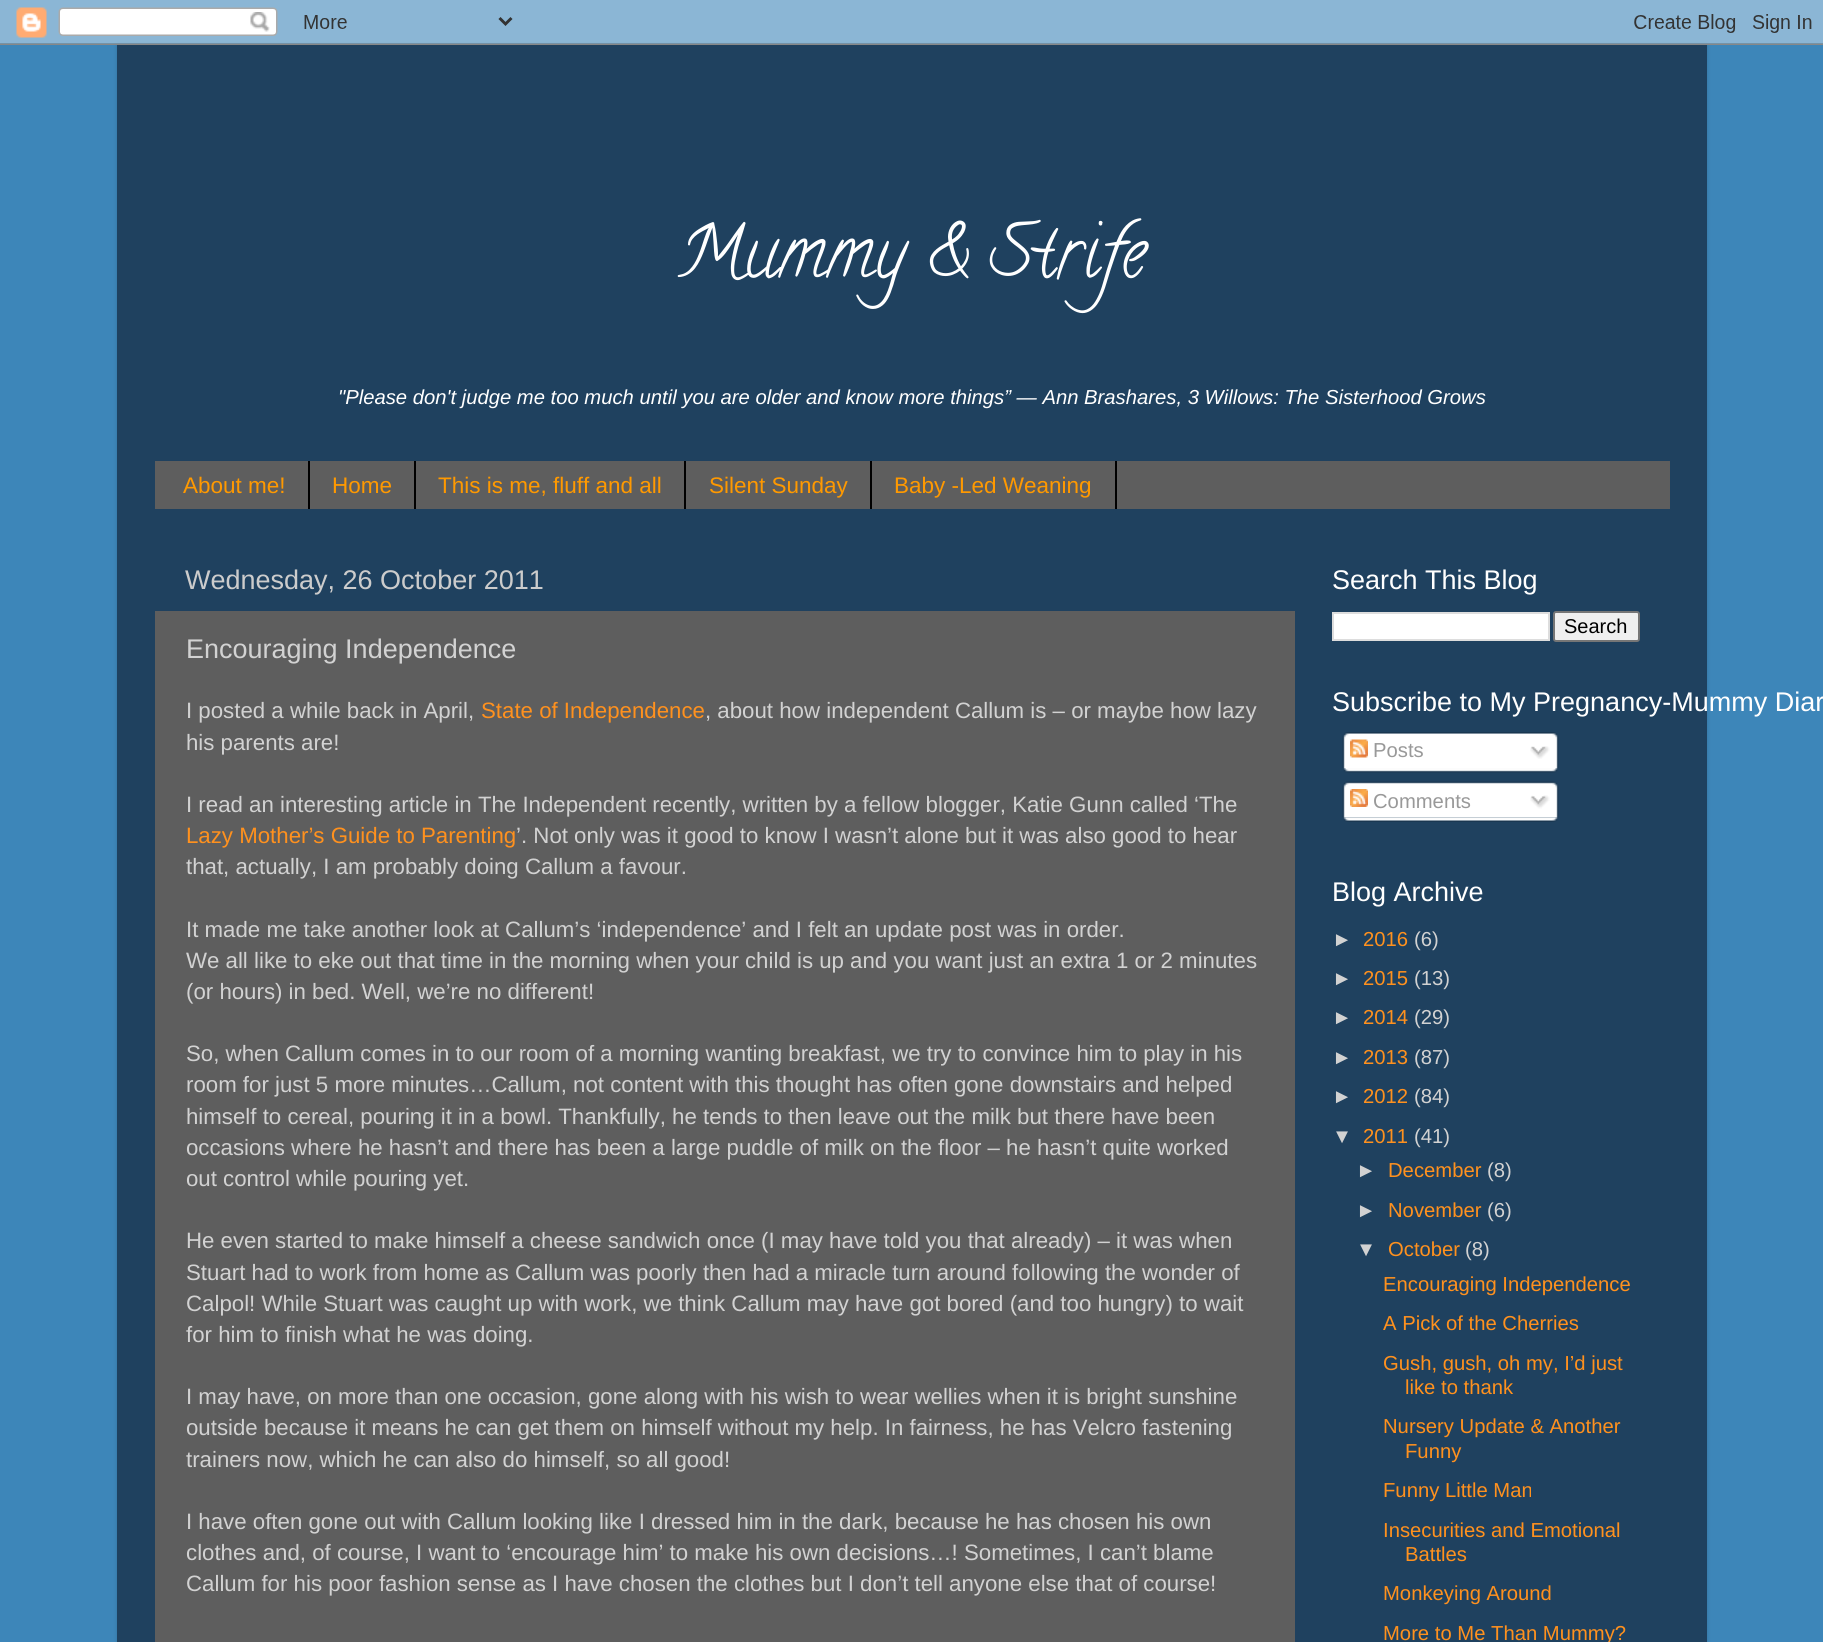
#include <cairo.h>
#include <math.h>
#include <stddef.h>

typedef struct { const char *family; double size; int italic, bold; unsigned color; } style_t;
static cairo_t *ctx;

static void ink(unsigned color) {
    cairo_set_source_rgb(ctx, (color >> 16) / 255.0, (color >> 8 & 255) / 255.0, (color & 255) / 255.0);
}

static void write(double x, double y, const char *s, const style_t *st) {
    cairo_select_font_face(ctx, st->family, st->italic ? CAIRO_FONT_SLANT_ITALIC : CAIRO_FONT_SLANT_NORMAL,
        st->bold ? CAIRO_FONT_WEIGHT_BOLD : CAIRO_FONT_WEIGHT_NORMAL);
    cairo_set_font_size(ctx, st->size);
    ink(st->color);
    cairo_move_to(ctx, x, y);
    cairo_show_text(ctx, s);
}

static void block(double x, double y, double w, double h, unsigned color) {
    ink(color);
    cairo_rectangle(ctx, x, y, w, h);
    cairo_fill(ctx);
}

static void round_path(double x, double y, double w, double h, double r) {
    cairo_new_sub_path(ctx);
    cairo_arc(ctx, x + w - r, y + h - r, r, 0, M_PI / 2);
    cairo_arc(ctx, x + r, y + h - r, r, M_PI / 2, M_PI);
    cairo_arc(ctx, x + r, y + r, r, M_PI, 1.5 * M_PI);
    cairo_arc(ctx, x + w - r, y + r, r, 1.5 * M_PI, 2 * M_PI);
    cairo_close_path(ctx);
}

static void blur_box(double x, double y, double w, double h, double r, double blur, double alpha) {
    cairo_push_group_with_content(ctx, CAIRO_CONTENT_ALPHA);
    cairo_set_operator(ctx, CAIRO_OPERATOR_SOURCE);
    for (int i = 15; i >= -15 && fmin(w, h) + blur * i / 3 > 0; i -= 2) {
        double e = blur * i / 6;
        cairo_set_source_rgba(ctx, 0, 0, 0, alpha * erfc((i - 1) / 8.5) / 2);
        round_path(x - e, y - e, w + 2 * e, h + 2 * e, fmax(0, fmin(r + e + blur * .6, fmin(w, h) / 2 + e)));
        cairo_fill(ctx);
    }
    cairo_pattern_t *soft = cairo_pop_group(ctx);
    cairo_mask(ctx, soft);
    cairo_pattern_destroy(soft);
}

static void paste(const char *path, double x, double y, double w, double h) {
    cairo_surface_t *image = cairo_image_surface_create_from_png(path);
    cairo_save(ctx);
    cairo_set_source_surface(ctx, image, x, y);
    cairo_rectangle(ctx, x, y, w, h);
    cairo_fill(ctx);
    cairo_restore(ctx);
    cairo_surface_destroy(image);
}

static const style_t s1 = {"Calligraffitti", 72, 0, 0, 0xffffff};
static const style_t s2 = {"Liberation Sans", 20.25, 1, 0, 0xffffff};
static const style_t s3 = {"Liberation Sans", 22.5, 0, 0, 0xff9900};
static const style_t s4 = {"Liberation Sans", 27, 0, 0, 0xcccccc};
static const style_t s5 = {"Liberation Sans", 27, 0, 0, 0xd2d2d2};
static const style_t s6 = {"Liberation Sans", 22.25, 0, 0, 0xd2d2d2};
static const style_t s7 = {"Liberation Sans", 22.25, 0, 0, 0xff911e};
static const style_t s8 = {"Liberation Sans", 27, 0, 0, 0xffffff};
static const style_t s9 = {"Liberation Sans", 20, 0, 0, 0x000000};
static const style_t s10 = {"Liberation Sans", 20.25, 0, 0, 0x999999};
static const style_t s11 = {"Liberation Sans", 20.25, 0, 0, 0xd2d2d2};
static const style_t s12 = {"Liberation Sans", 20.25, 0, 0, 0xff911e};

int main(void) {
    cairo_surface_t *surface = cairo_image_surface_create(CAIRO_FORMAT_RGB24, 1823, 1642);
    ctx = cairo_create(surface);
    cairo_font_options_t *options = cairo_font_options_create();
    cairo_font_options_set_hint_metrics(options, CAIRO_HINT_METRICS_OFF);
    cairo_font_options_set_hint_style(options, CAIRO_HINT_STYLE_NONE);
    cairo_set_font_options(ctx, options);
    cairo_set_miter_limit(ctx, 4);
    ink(0x3d86b9);
    cairo_paint(ctx);
    ink(0x000000);
    blur_box(117, 45, 1590, 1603, 0, 2, 0.15);
    paste("pic1.png", 0, 0, 1823, 45);
    block(117, 45, 1590, 1597, 0x1f415f);
    write(677, 275, "Mummy & Strife", &s1);
    write(338, 404, "\"Please don't judge me too much until you are older and know more things” ― Ann Brashares, 3 Willows: The Sisterhood Grows", &s2);
    block(155, 461, 1515, 48, 0x5e5e5e);
    block(308, 461, 2, 48, 0x000000);
    write(183, 493, "About me!", &s3);
    block(414, 461, 2, 48, 0x000000);
    write(332, 493, "Home", &s3);
    block(684, 461, 2, 48, 0x000000);
    write(438, 493, "This is me, fluff and all", &s3);
    block(870, 461, 2, 48, 0x000000);
    write(709, 493, "Silent Sunday", &s3);
    block(1115, 461, 2, 48, 0x000000);
    write(894, 493, "Baby -Led Weaning", &s3);
    write(185, 589, "Wednesday, 26 October 2011", &s4);
    block(155, 611, 1140, 1031, 0x5e5e5e);
    write(186, 658, "Encouraging Independence", &s5);
    write(186, 718, "I posted a while back in April,", &s6);
    write(481, 718, "State of Independence", &s7);
    write(705, 718, ", about how independent Callum is – or maybe how lazy", &s6);
    write(186, 750, "his parents are!", &s6);
    write(186, 812, "I read an interesting article in The Independent recently, written by a fellow blogger, Katie Gunn called ‘The", &s6);
    write(186, 843, "Lazy Mother’s Guide to Parenting", &s7);
    write(516, 843, "’. Not only was it good to know I wasn’t alone but it was also good to hear", &s6);
    write(186, 874, "that, actually, I am probably doing Callum a favour.", &s6);
    write(186, 937, "It made me take another look at Callum’s ‘independence’ and I felt an update post was in order.", &s6);
    write(186, 968, "We all like to eke out that time in the morning when your child is up and you want just an extra 1 or 2 minutes", &s6);
    write(186, 999, "(or hours) in bed. Well, we’re no different!", &s6);
    write(186, 1061, "So, when Callum comes in to our room of a morning wanting breakfast, we try to convince him to play in his", &s6);
    write(186, 1092, "room for just 5 more minutes…Callum, not content with this thought has often gone downstairs and helped", &s6);
    write(186, 1124, "himself to cereal, pouring it in a bowl. Thankfully, he tends to then leave out the milk but there have been", &s6);
    write(186, 1155, "occasions where he hasn’t and there has been a large puddle of milk on the floor – he hasn’t quite worked", &s6);
    write(186, 1186, "out control while pouring yet.", &s6);
    write(186, 1248, "He even started to make himself a cheese sandwich once (I may have told you that already) – it was when", &s6);
    write(186, 1280, "Stuart had to work from home as Callum was poorly then had a miracle turn around following the wonder of", &s6);
    write(186, 1311, "Calpol! While Stuart was caught up with work, we think Callum may have got bored (and too hungry) to wait", &s6);
    write(186, 1342, "for him to finish what he was doing.", &s6);
    write(186, 1404, "I may have, on more than one occasion, gone along with his wish to wear wellies when it is bright sunshine", &s6);
    write(186, 1435, "outside because it means he can get them on himself without my help. In fairness, he has Velcro fastening", &s6);
    write(186, 1467, "trainers now, which he can also do himself, so all good!", &s6);
    write(186, 1529, "I have often gone out with Callum looking like I dressed him in the dark, because he has chosen his own", &s6);
    write(186, 1560, "clothes and, of course, I want to ‘encourage him’ to make his own decisions…! Sometimes, I can’t blame", &s6);
    write(186, 1591, "Callum for his poor fashion sense as I have chosen the clothes but I don’t tell anyone else that of course!", &s6);
    write(1332, 589, "Search This Blog", &s8);
    cairo_rectangle(ctx, 1333, 613, 216, 27);
    cairo_fill_preserve(ctx);
    ink(0xdddddd);
    cairo_stroke(ctx);
    ink(0xefefef);
    round_path(1554, 612, 85, 29, 2);
    cairo_fill_preserve(ctx);
    ink(0x767676);
    cairo_stroke(ctx);
    write(1564, 633, "Search", &s9);
    write(1332, 711, "Subscribe to My Pregnancy-Mummy Diar", &s8);
    paste("pic2.png", 1342, 732, 217, 36);
    paste("pic3.png", 1350, 739, 18, 19);
    write(1373, 757, "Posts", &s10);
    paste("pic4.png", 1530, 746, 20, 13);
    paste("pic5.png", 1343, 768, 215, 5);
    paste("pic6.png", 1342, 781, 217, 37);
    paste("pic7.png", 1350, 789, 18, 18);
    write(1373, 808, "Comments", &s10);
    paste("pic8.png", 1530, 795, 20, 14);
    paste("pic9.png", 1343, 817, 215, 5);
    write(1332, 901, "Blog Archive", &s8);
    write(1332, 946, "►", &s11);
    write(1363, 946, "2016", &s12);
    write(1414, 946, "(6)", &s11);
    write(1332, 985, "►", &s11);
    write(1363, 985, "2015", &s12);
    write(1414, 985, "(13)", &s11);
    write(1332, 1024, "►", &s11);
    write(1363, 1024, "2014", &s12);
    write(1414, 1024, "(29)", &s11);
    write(1332, 1064, "►", &s11);
    write(1363, 1064, "2013", &s12);
    write(1414, 1064, "(87)", &s11);
    write(1332, 1103, "►", &s11);
    write(1363, 1103, "2012", &s12);
    write(1414, 1103, "(84)", &s11);
    write(1332, 1143, "▼", &s11);
    write(1363, 1143, "2011", &s12);
    write(1414, 1143, "(41)", &s11);
    write(1356, 1177, "►", &s11);
    write(1388, 1177, "December", &s12);
    write(1487, 1177, "(8)", &s11);
    write(1356, 1217, "►", &s11);
    write(1388, 1217, "November", &s12);
    write(1487, 1217, "(6)", &s11);
    write(1356, 1256, "▼", &s11);
    write(1388, 1256, "October", &s12);
    write(1465, 1256, "(8)", &s11);
    write(1383, 1291, "Encouraging Independence", &s12);
    write(1383, 1330, "A Pick of the Cherries", &s12);
    write(1383, 1370, "Gush, gush, oh my, I’d just", &s12);
    write(1405, 1394, "like to thank", &s12);
    write(1383, 1433, "Nursery Update & Another", &s12);
    write(1405, 1458, "Funny", &s12);
    write(1383, 1497, "Funny Little Man", &s12);
    write(1383, 1537, "Insecurities and Emotional", &s12);
    write(1405, 1561, "Battles", &s12);
    write(1383, 1600, "Monkeying Around", &s12);
    write(1383, 1640, "More to Me Than Mummy?", &s12);
    cairo_surface_write_to_png(surface, "screenshot.png");
    cairo_font_options_destroy(options);
    cairo_destroy(ctx);
    cairo_surface_destroy(surface);
    return 0;
}
